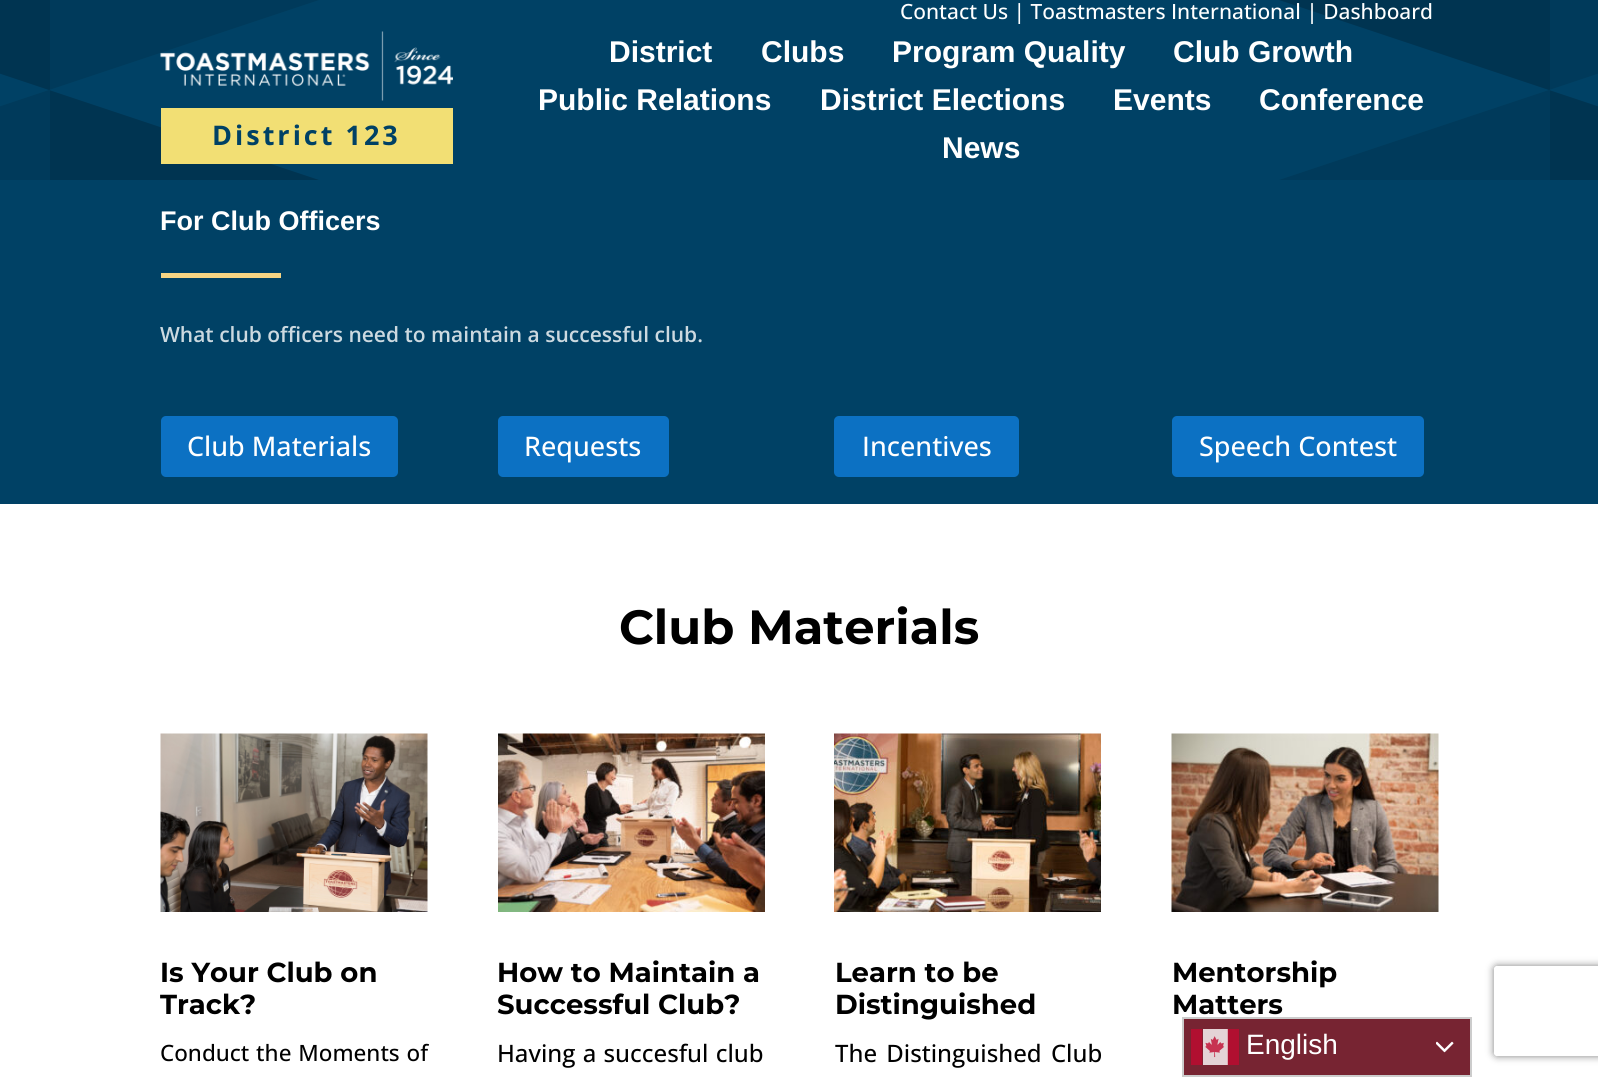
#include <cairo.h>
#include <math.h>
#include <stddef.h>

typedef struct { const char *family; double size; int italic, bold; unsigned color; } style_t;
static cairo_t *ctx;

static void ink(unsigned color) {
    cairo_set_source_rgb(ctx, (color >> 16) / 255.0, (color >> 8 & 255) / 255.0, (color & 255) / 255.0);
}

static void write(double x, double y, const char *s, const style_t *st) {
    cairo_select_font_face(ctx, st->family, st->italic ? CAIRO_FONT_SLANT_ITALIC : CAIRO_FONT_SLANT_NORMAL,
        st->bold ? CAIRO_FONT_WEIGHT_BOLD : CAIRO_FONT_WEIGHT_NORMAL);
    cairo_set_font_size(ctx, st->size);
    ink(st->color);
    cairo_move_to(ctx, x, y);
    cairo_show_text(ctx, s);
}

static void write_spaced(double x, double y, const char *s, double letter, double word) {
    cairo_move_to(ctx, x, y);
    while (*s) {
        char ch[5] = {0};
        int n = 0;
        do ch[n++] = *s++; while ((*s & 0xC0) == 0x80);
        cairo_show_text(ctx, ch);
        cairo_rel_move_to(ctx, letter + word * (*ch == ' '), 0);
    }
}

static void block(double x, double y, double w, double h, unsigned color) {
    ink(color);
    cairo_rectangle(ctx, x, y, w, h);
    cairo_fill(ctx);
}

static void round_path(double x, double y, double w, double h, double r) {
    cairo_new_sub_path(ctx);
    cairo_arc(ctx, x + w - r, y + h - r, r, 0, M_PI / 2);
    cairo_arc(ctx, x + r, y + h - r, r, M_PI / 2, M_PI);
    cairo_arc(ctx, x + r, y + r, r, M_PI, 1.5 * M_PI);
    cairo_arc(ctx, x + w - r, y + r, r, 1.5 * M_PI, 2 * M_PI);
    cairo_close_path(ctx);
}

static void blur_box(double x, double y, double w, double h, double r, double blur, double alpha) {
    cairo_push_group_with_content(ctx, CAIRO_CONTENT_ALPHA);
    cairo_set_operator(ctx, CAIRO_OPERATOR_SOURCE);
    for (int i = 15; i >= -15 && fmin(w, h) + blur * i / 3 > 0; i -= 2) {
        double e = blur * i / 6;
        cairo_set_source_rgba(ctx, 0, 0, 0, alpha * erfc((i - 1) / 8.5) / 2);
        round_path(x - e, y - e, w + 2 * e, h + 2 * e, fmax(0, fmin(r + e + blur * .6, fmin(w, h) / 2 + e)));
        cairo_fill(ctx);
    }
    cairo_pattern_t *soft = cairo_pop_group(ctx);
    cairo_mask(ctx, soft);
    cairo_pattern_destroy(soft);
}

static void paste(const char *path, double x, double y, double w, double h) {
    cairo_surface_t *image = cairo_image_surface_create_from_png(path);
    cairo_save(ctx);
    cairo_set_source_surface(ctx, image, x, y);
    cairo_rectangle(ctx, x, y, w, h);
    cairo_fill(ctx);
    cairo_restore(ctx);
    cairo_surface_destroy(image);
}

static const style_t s1 = {"Open Sans Medium", 21, 0, 0, 0xffffff};
static const style_t s2 = {"Liberation Sans", 30, 0, 1, 0xffffff};
static const style_t s3 = {"Liberation Sans", 27, 0, 1, 0xffffff};
static const style_t s4 = {"Open Sans SemiBold", 21, 0, 0, 0xccd9e0};
static const style_t s5 = {"Open Sans Medium", 27, 0, 0, 0xffffff};
static const style_t s6 = {"Montserrat Thin", 48, 0, 0, 0x000000};
static const style_t s7 = {"Montserrat Thin", 27.5, 0, 0, 0x000000};
static const style_t s8 = {"Liberation Sans", 28, 0, 0, 0xffffff};

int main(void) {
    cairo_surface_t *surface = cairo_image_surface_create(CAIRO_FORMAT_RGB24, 1598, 1077);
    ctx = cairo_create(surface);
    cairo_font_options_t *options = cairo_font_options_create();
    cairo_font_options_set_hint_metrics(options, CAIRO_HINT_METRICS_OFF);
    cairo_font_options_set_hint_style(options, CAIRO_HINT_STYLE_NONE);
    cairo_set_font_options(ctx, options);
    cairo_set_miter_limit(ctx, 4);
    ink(0x004165);
    cairo_paint(ctx);
    paste("pic1.png", 0, 0, 1598, 180);
    paste("pic2.png", 160, 31, 293, 70);
    block(161, 108, 292, 56, 0xf2df74);
    cairo_select_font_face(ctx, "Open Sans", CAIRO_FONT_SLANT_NORMAL, CAIRO_FONT_WEIGHT_BOLD);
    cairo_set_font_size(ctx, 27);
    ink(0x004165);
    write_spaced(212, 145, "District 123", 3, 0);
    write(900, 19, "Contact Us | Toastmasters International | Dashboard", &s1);
    write(609, 62, "District", &s2);
    write(761, 62, "Clubs", &s2);
    write(892, 62, "Program Quality", &s2);
    write(1173, 62, "Club Growth", &s2);
    write(538, 110, "Public Relations", &s2);
    write(820, 110, "District Elections", &s2);
    write(1113, 110, "Events", &s2);
    write(1259, 110, "Conference", &s2);
    write(942, 158, "News", &s2);
    write(160, 230, "For Club Officers", &s3);
    block(161, 273, 120, 5, 0xf7d584);
    write(160, 342, "What club officers need to maintain a successful club.", &s4);
    ink(0x0c71c3);
    round_path(161, 416, 237, 61, 5);
    cairo_fill(ctx);
    write(187, 456, "Club Materials", &s5);
    ink(0x0c71c3);
    round_path(498, 416, 171, 61, 5);
    cairo_fill(ctx);
    write(524, 456, "Requests", &s5);
    ink(0x0c71c3);
    round_path(834, 416, 185, 61, 5);
    cairo_fill(ctx);
    write(862, 456, "Incentives", &s5);
    ink(0x0c71c3);
    round_path(1172, 416, 252, 61, 5);
    cairo_fill(ctx);
    write(1199, 456, "Speech Contest", &s5);
    block(0, 504, 1598, 573, 0xffffff);
    write(619, 644, "Club Materials", &s6);
    paste("pic3.png", 160, 733, 268, 179);
    write(160, 982, "Is Your Club on", &s7);
    write(160, 1014, "Track?", &s7);
    cairo_select_font_face(ctx, "Open Sans Medium", CAIRO_FONT_SLANT_NORMAL, CAIRO_FONT_WEIGHT_NORMAL);
    cairo_set_font_size(ctx, 22.5);
    write_spaced(160, 1061, "Conduct the Moments of", 0, 1);
    paste("pic4.png", 498, 733, 267, 179);
    write(497, 982, "How to Maintain a", &s7);
    write(497, 1014, "Successful Club?", &s7);
    cairo_select_font_face(ctx, "Open Sans Medium", CAIRO_FONT_SLANT_NORMAL, CAIRO_FONT_WEIGHT_NORMAL);
    cairo_set_font_size(ctx, 24);
    write_spaced(497, 1062, "Having a succesful club", 0, 1);
    paste("pic5.png", 834, 733, 267, 179);
    write(835, 982, "Learn to be", &s7);
    write(835, 1014, "Distinguished", &s7);
    cairo_select_font_face(ctx, "Open Sans Medium", CAIRO_FONT_SLANT_NORMAL, CAIRO_FONT_WEIGHT_NORMAL);
    cairo_set_font_size(ctx, 24);
    write_spaced(835, 1062, "The Distinguished Club", 0, 3);
    paste("pic6.png", 1171, 733, 268, 179);
    write(1172, 982, "Mentorship", &s7);
    write(1172, 1014, "Matters", &s7);
    cairo_save(ctx);
    cairo_set_fill_rule(ctx, CAIRO_FILL_RULE_EVEN_ODD);
    cairo_new_path(ctx);
    cairo_move_to(ctx, 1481, 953);
    cairo_line_to(ctx, 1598, 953);
    cairo_line_to(ctx, 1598, 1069);
    cairo_line_to(ctx, 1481, 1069);
    cairo_close_path(ctx);
    cairo_move_to(ctx, 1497, 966);
    cairo_line_to(ctx, 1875, 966);
    cairo_curve_to(ctx, 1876.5, 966, 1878, 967.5, 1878, 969);
    cairo_line_to(ctx, 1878, 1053);
    cairo_curve_to(ctx, 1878, 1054.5, 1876.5, 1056, 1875, 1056);
    cairo_line_to(ctx, 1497, 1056);
    cairo_curve_to(ctx, 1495.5, 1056, 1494, 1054.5, 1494, 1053);
    cairo_line_to(ctx, 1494, 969);
    cairo_curve_to(ctx, 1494, 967.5, 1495.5, 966, 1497, 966);
    cairo_close_path(ctx);
    cairo_clip(ctx);
    ink(0x808080);
    blur_box(1494, 966, 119, 90, 3, 4, 1);
    cairo_restore(ctx);
    ink(0x772432);
    cairo_rectangle(ctx, 1183, 1018, 288, 58);
    cairo_fill_preserve(ctx);
    ink(0xcccccc);
    cairo_stroke(ctx);
    paste("pic7.png", 1191, 1029, 48, 36);
    write(1246, 1054, "English", &s8);
    paste("pic8.png", 1436, 1041, 18, 12);
    cairo_surface_write_to_png(surface, "screenshot.png");
    cairo_font_options_destroy(options);
    cairo_destroy(ctx);
    cairo_surface_destroy(surface);
    return 0;
}
